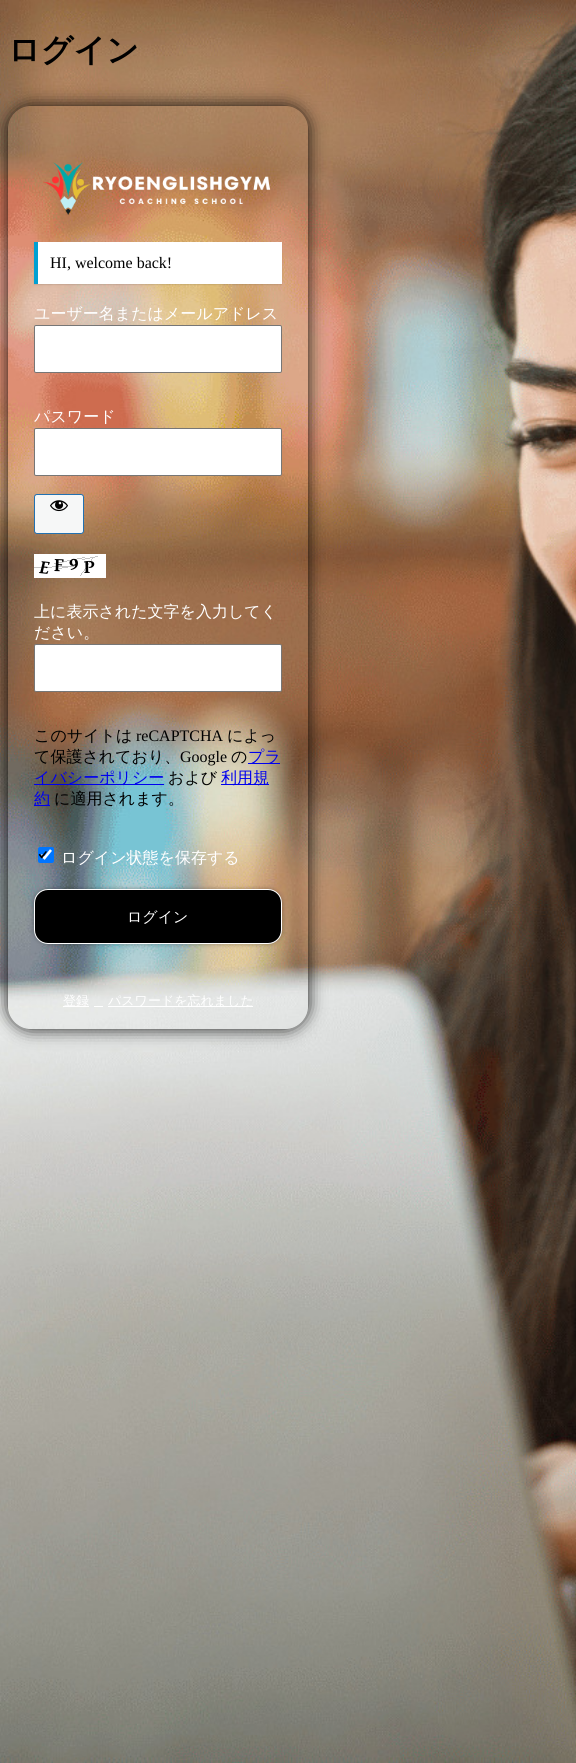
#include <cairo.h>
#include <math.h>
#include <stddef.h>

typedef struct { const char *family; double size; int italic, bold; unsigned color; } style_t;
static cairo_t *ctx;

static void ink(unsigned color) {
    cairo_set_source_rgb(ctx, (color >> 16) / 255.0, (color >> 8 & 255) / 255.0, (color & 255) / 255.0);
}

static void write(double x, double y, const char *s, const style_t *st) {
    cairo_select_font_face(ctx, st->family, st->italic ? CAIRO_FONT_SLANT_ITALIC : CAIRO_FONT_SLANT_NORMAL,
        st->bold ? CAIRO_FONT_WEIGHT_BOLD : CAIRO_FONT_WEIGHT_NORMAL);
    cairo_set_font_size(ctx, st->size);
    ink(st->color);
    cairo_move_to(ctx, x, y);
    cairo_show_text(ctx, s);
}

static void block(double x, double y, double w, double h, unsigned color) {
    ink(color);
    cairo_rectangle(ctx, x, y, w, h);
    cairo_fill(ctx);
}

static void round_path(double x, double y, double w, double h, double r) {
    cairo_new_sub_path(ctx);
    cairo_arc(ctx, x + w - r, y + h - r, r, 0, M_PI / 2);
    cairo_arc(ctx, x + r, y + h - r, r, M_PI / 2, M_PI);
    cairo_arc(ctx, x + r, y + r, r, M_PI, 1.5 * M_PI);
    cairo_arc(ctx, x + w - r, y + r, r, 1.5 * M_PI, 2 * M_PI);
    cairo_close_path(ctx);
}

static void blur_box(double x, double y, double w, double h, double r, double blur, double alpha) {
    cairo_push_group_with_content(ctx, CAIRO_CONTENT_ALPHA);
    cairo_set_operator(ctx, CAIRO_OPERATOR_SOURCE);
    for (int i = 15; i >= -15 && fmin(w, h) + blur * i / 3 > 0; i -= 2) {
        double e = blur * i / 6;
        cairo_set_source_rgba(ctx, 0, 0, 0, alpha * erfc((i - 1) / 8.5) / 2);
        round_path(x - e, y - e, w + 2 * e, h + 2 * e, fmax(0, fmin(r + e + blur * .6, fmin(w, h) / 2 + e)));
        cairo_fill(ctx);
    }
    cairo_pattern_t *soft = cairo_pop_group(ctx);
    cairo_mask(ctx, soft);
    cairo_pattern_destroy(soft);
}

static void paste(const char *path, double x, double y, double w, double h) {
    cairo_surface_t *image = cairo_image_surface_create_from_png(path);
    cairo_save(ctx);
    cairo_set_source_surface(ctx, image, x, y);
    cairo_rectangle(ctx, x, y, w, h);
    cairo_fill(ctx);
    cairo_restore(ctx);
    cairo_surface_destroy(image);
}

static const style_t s1 = {"WenQuanYi Zen Hei", 32, 0, 1, 0x000000};
static const style_t s2 = {"Liberation Serif", 16, 0, 0, 0x000000};
static const style_t s3 = {"WenQuanYi Zen Hei Medium", 16, 0, 0, 0xffffff};
static const style_t s4 = {"WenQuanYi Zen Hei Medium", 16, 0, 0, 0x000000};
static const style_t s5 = {"WenQuanYi Zen Hei Medium", 16, 0, 0, 0x0000ee};
static const style_t s6 = {"WenQuanYi Zen Hei Medium", 15, 0, 0, 0xffffff};
static const style_t s7 = {"WenQuanYi Zen Hei Medium", 13, 0, 0, 0xffffff};

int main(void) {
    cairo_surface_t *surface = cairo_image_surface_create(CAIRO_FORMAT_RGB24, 576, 1763);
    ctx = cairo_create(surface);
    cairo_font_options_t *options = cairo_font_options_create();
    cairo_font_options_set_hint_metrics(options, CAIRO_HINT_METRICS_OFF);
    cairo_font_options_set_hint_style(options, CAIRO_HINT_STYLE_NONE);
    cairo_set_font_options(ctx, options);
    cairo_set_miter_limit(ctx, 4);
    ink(0xffffff);
    cairo_paint(ctx);
    paste("pic1.png", 0, 0, 576, 1763);
    write(8, 61, "ログイン", &s1);
    cairo_save(ctx);
    cairo_set_fill_rule(ctx, CAIRO_FILL_RULE_EVEN_ODD);
    cairo_new_path(ctx);
    cairo_move_to(ctx, 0, 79);
    cairo_line_to(ctx, 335, 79);
    cairo_line_to(ctx, 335, 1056);
    cairo_line_to(ctx, 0, 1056);
    cairo_close_path(ctx);
    cairo_move_to(ctx, 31, 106);
    cairo_line_to(ctx, 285, 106);
    cairo_curve_to(ctx, 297.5, 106, 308, 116.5, 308, 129);
    cairo_line_to(ctx, 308, 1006);
    cairo_curve_to(ctx, 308, 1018.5, 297.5, 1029, 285, 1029);
    cairo_line_to(ctx, 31, 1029);
    cairo_curve_to(ctx, 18.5, 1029, 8, 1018.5, 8, 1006);
    cairo_line_to(ctx, 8, 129);
    cairo_curve_to(ctx, 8, 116.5, 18.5, 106, 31, 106);
    cairo_close_path(ctx);
    cairo_clip(ctx);
    ink(0x000000);
    blur_box(8, 106, 300, 923, 23, 8.5, 0.88);
    cairo_restore(ctx);
    paste("pic2.png", 43, 162, 228, 53);
    ink(0x000000);
    blur_box(34, 243, 248, 42, 0, 0.5, 0.1);
    block(38, 242, 244, 42, 0xffffff);
    block(34, 242, 4, 42, 0x00a0d2);
    write(50, 268, "HI, welcome back!", &s2);
    write(34, 319, "ユーザー名またはメールアドレス", &s3);
    round_path(34.5, 325.5, 247, 47, 1.5);
    cairo_fill_preserve(ctx);
    ink(0x767676);
    cairo_set_line_width(ctx, 1);
    cairo_stroke(ctx);
    write(34, 422, "パスワード", &s3);
    round_path(34.5, 428.5, 247, 47, 1.5);
    cairo_fill_preserve(ctx);
    ink(0x767676);
    cairo_stroke(ctx);
    ink(0xf6f7f7);
    round_path(34.5, 494.5, 49, 39, 2.5);
    cairo_fill_preserve(ctx);
    ink(0x2271b1);
    cairo_stroke(ctx);
    paste("pic3.png", 50, 500, 18, 12);
    paste("pic4.png", 34, 554, 72, 24);
    write(34, 617, "上に表示された文字を入力してく", &s3);
    write(34, 638, "ださい。", &s3);
    round_path(34.5, 644.5, 247, 47, 1.5);
    cairo_fill_preserve(ctx);
    ink(0x767676);
    cairo_stroke(ctx);
    write(34, 741, "このサイトは", &s4);
    write(136, 741, "reCAPTCHA", &s2);
    write(227, 741, "によっ", &s4);
    write(34, 762, "て保護されており、", &s4);
    write(180, 762, "Google", &s2);
    write(231, 762, "の", &s4);
    block(248, 763, 32, 1, 0x0000ee);
    write(248, 762, "プラ", &s5);
    block(34, 784, 130, 1, 0x0000ee);
    write(34, 783, "イバシーポリシー", &s5);
    write(168, 783, "および", &s4);
    block(221, 784, 48, 1, 0x0000ee);
    write(221, 783, "利用規", &s5);
    block(34, 805, 16, 1, 0x0000ee);
    write(34, 804, "約", &s5);
    write(54, 804, "に適用されます。", &s4);
    ink(0x0075ff);
    round_path(38, 847, 16, 16, 2);
    cairo_fill(ctx);
    cairo_new_path(ctx);
    cairo_move_to(ctx, 41, 855);
    cairo_line_to(ctx, 44.5, 858);
    cairo_line_to(ctx, 51, 850);
    ink(0xffffff);
    cairo_set_line_width(ctx, 2.6);
    cairo_stroke(ctx);
    paste("pic5.png", 38, 851, 9, 8);
    write(61, 863, "ログイン状態を保存する", &s3);
    ink(0x000000);
    blur_box(34, 889, 248, 55, 14, 2.5, 0.32);
    ink(0x000000);
    round_path(34.5, 889.5, 247, 54, 13.5);
    cairo_fill_preserve(ctx);
    ink(0xffffff);
    cairo_set_line_width(ctx, 1);
    cairo_stroke(ctx);
    write(127, 922, "ログイン", &s6);
    block(63, 1006, 26, 1, 0xffffff);
    write(63, 1005, "登録", &s7);
    block(94, 1006, 9, 1, 0xffffff);
    block(108, 1006, 145, 1, 0xffffff);
    write(108, 1005, "パスワードを忘れました", &s7);
    cairo_surface_write_to_png(surface, "screenshot.png");
    cairo_font_options_destroy(options);
    cairo_destroy(ctx);
    cairo_surface_destroy(surface);
    return 0;
}
